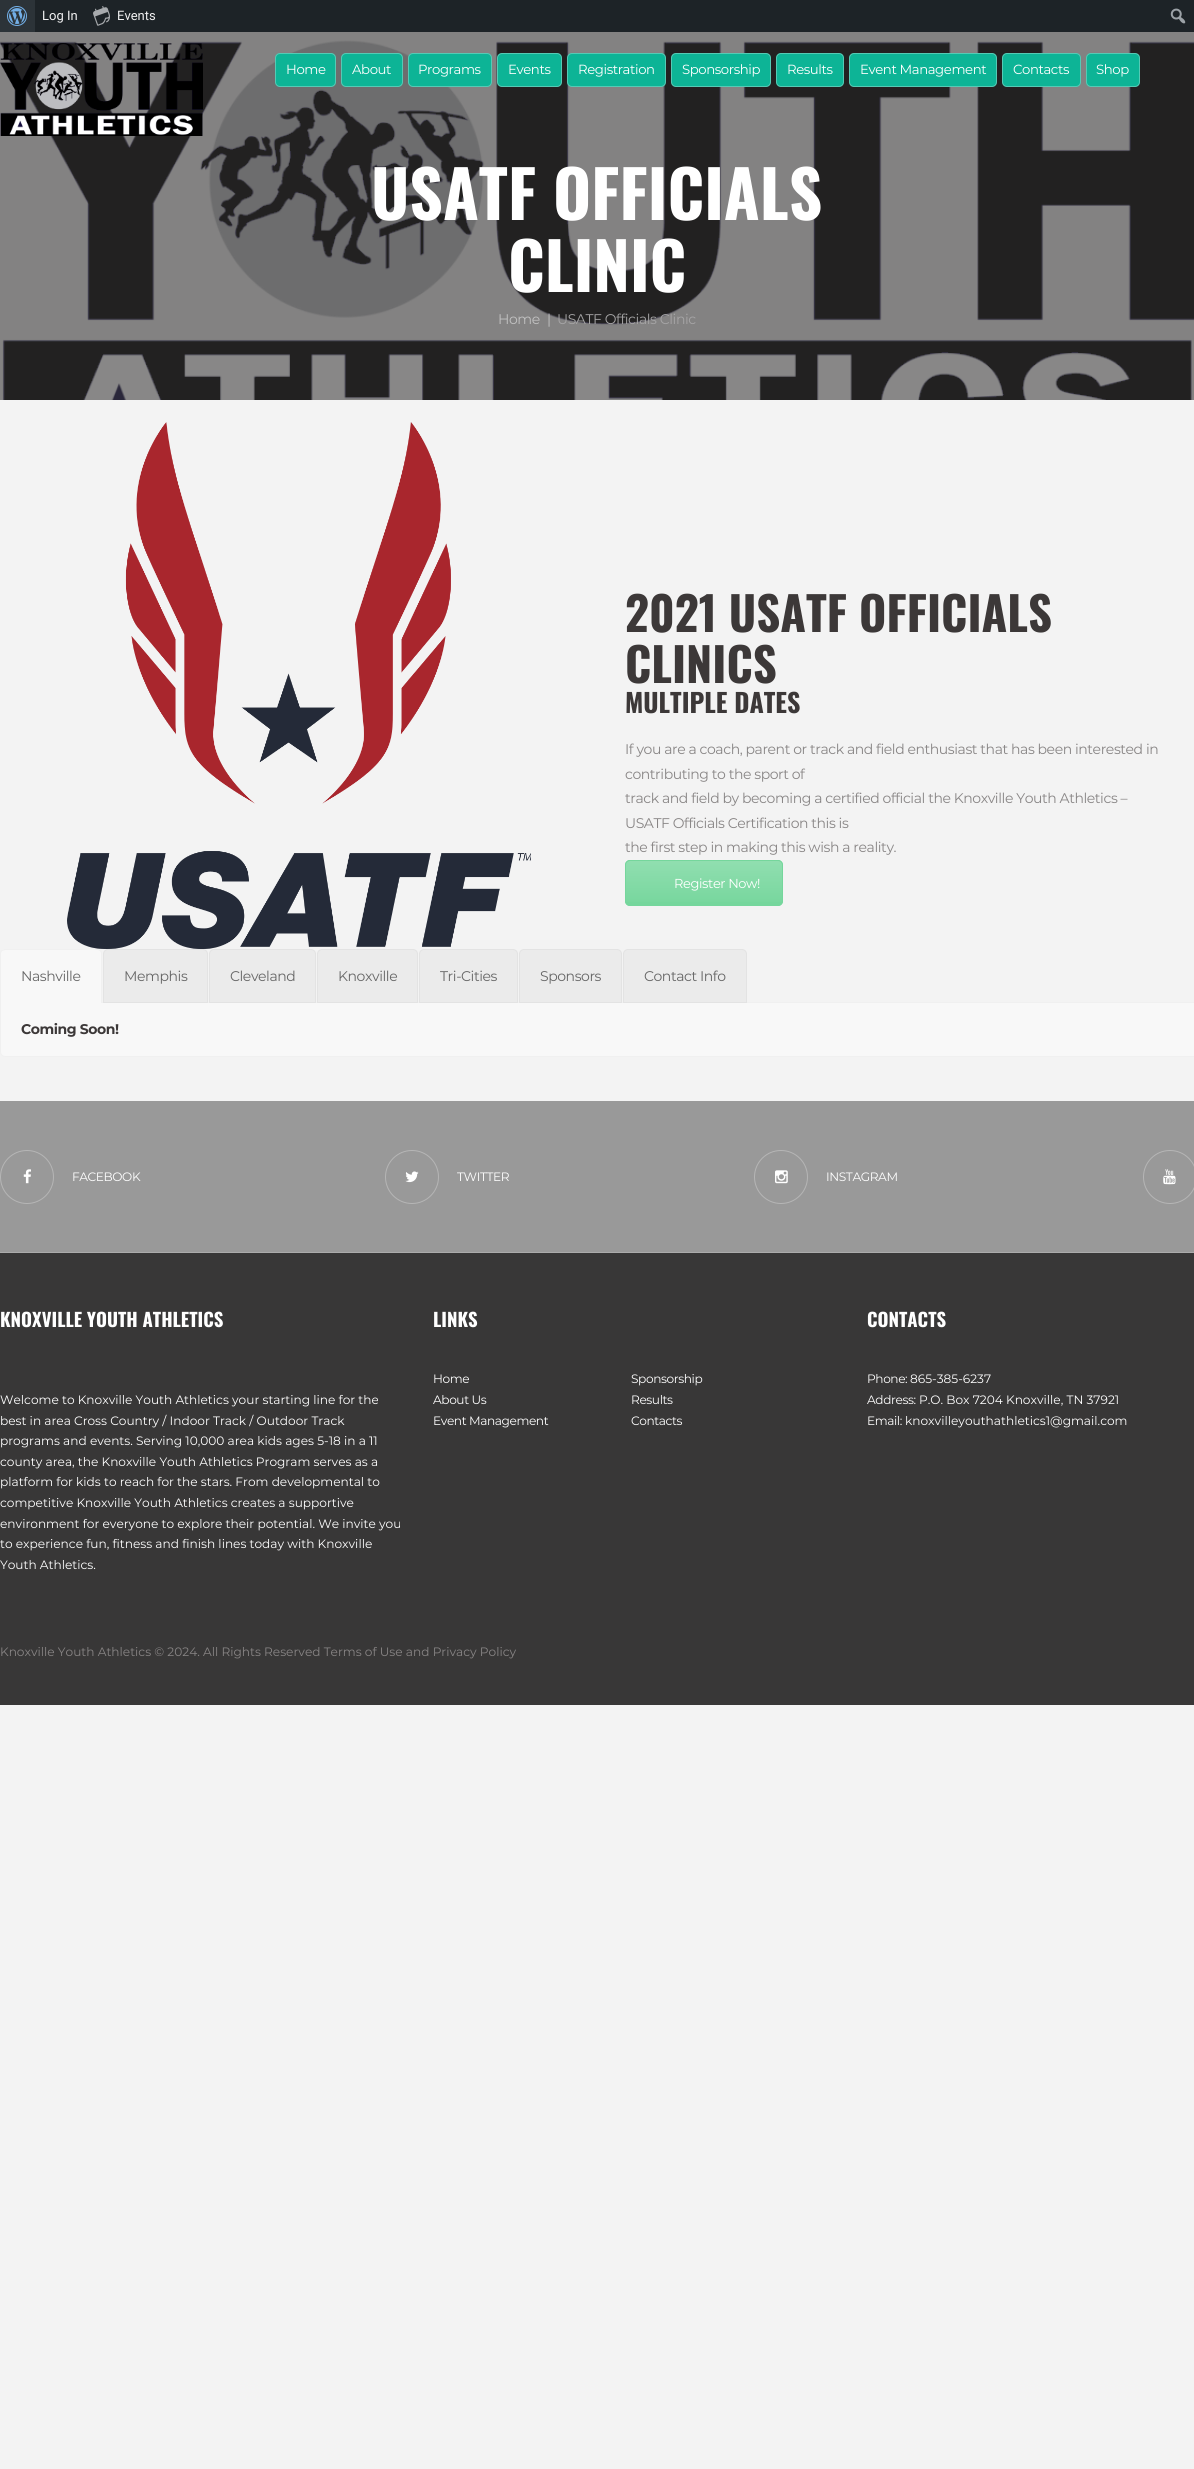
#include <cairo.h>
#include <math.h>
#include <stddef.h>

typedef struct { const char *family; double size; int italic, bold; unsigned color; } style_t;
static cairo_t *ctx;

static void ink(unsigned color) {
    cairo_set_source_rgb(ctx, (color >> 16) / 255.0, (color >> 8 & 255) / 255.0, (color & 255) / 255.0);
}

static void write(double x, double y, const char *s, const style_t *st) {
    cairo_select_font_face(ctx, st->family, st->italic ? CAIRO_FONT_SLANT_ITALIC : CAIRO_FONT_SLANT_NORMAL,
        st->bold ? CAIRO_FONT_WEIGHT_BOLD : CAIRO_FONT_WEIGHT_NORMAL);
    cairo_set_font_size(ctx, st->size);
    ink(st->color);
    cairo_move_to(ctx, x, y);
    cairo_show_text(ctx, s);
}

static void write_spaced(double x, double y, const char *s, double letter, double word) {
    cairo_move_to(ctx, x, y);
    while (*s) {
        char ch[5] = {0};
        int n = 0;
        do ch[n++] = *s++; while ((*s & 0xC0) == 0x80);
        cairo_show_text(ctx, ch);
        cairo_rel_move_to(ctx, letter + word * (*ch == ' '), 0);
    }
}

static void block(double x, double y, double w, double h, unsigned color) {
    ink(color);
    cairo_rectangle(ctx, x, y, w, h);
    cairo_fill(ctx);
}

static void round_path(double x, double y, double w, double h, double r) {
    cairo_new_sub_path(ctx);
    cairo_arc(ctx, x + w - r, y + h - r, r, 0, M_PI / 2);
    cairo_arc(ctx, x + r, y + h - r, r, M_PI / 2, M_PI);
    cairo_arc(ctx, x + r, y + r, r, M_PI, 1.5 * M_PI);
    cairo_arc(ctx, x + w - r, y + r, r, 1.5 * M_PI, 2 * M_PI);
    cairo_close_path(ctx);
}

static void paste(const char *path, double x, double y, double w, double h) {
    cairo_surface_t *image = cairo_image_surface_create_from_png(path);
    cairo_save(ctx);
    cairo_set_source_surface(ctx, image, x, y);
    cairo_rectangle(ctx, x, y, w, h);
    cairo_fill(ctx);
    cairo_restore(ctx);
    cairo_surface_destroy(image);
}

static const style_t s1 = {"Roboto", 13, 0, 0, 0xf0f0f1};
static const style_t s2 = {"Oswald", 65.25, 0, 1, 0xffffff};
static const style_t s3 = {"Oswald", 46.75, 0, 1, 0x3c3838};
static const style_t s4 = {"Oswald", 26, 0, 1, 0x3c3838};
static const style_t s5 = {"Oswald", 18.7, 0, 1, 0xffffff};
static const style_t s6 = {"Montserrat", 12.15, 0, 0, 0xffffff};
static const style_t s7 = {"Montserrat", 12.15, 0, 0, 0x888585};

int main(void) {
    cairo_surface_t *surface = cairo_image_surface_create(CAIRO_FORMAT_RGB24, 1194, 2469);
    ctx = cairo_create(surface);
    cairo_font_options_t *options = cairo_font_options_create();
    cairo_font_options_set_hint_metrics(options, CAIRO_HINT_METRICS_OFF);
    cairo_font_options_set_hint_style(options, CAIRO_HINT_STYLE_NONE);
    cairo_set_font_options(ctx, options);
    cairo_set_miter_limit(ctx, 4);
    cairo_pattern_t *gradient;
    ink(0xf3f3f3);
    cairo_paint(ctx);
    block(0, 32, 1194, 368, 0x838282);
    block(35, 0, 1159, 32, 0x1d2327);
    block(0, 0, 35, 32, 0x2c3338);
    paste("pic1.png", 7, 6, 20, 20);
    write(42, 20, "Log In", &s1);
    paste("pic2.png", 93, 6, 17, 20);
    write(117, 20, "Events", &s1);
    paste("pic3.png", 1170, 8, 16, 16);
    paste("pic5.png", 0, 40, 1194, 360);
    paste("pic4.png", 0, 43, 203, 93);
    ink(0x0db496);
    round_path(275, 53, 61, 34, 5);
    cairo_fill(ctx);
    round_path(275.5, 53.5, 60, 33, 4.5);
    cairo_set_source_rgba(ctx, 1, 1, 1, 0.3);
    cairo_set_line_width(ctx, 1);
    cairo_stroke(ctx);
    cairo_select_font_face(ctx, "Montserrat", CAIRO_FONT_SLANT_NORMAL, CAIRO_FONT_WEIGHT_NORMAL);
    cairo_set_font_size(ctx, 13.25);
    ink(0xffffff);
    write_spaced(286, 74, "Home", -0.4, 0);
    ink(0x0db496);
    round_path(341, 53, 62, 34, 5);
    cairo_fill(ctx);
    round_path(341.5, 53.5, 61, 33, 4.5);
    cairo_set_source_rgba(ctx, 1, 1, 1, 0.3);
    cairo_stroke(ctx);
    ink(0xffffff);
    write_spaced(352, 74, "About", -0.4, 0);
    ink(0x0db496);
    round_path(408, 53, 84, 34, 5);
    cairo_fill(ctx);
    round_path(408.5, 53.5, 83, 33, 4.5);
    cairo_set_source_rgba(ctx, 1, 1, 1, 0.3);
    cairo_stroke(ctx);
    ink(0xffffff);
    write_spaced(418, 74, "Programs", -0.4, 0);
    ink(0x0db496);
    round_path(497, 53, 65, 34, 5);
    cairo_fill(ctx);
    round_path(497.5, 53.5, 64, 33, 4.5);
    cairo_set_source_rgba(ctx, 1, 1, 1, 0.3);
    cairo_stroke(ctx);
    ink(0xffffff);
    write_spaced(508, 74, "Events", -0.4, 0);
    ink(0x0db496);
    round_path(567, 53, 99, 34, 5);
    cairo_fill(ctx);
    round_path(567.5, 53.5, 98, 33, 4.5);
    cairo_set_source_rgba(ctx, 1, 1, 1, 0.3);
    cairo_stroke(ctx);
    ink(0xffffff);
    write_spaced(578, 74, "Registration", -0.4, 0);
    ink(0x0db496);
    round_path(671, 53, 100, 34, 5);
    cairo_fill(ctx);
    round_path(671.5, 53.5, 99, 33, 4.5);
    cairo_set_source_rgba(ctx, 1, 1, 1, 0.3);
    cairo_stroke(ctx);
    ink(0xffffff);
    write_spaced(682, 74, "Sponsorship", -0.4, 0);
    ink(0x0db496);
    round_path(776, 53, 68, 34, 5);
    cairo_fill(ctx);
    round_path(776.5, 53.5, 67, 33, 4.5);
    cairo_set_source_rgba(ctx, 1, 1, 1, 0.3);
    cairo_stroke(ctx);
    ink(0xffffff);
    write_spaced(787, 74, "Results", -0.4, 0);
    ink(0x0db496);
    round_path(849, 53, 148, 34, 5);
    cairo_fill(ctx);
    round_path(849.5, 53.5, 147, 33, 4.5);
    cairo_set_source_rgba(ctx, 1, 1, 1, 0.3);
    cairo_stroke(ctx);
    ink(0xffffff);
    write_spaced(860, 74, "Event Management", -0.4, 0);
    ink(0x0db496);
    round_path(1002, 53, 79, 34, 5);
    cairo_fill(ctx);
    round_path(1002.5, 53.5, 78, 33, 4.5);
    cairo_set_source_rgba(ctx, 1, 1, 1, 0.3);
    cairo_stroke(ctx);
    ink(0xffffff);
    write_spaced(1013, 74, "Contacts", -0.4, 0);
    ink(0x0db496);
    round_path(1086, 53, 54, 34, 5);
    cairo_fill(ctx);
    round_path(1086.5, 53.5, 53, 33, 4.5);
    cairo_set_source_rgba(ctx, 1, 1, 1, 0.3);
    cairo_stroke(ctx);
    ink(0xffffff);
    write_spaced(1096, 74, "Shop", -0.4, 0);
    write(371, 220, "USATF OFFICIALS", &s2);
    write(508, 292, "CLINIC", &s2);
    cairo_select_font_face(ctx, "Montserrat", CAIRO_FONT_SLANT_NORMAL, CAIRO_FONT_WEIGHT_NORMAL);
    cairo_set_font_size(ctx, 14);
    ink(0xc1c1c1);
    write_spaced(498, 324, "Home", -0.42, 0);
    write_spaced(547, 324, "|", -0.42, 0);
    ink(0xa5a4a5);
    write_spaced(557, 324, "USATF Officials Clinic", -0.42, 0);
    paste("pic6.png", 67, 422, 464, 527);
    write(625, 632, "2021 USATF OFFICIALS", &s3);
    write(625, 683, "CLINICS", &s3);
    write(625, 713, "MULTIPLE DATES", &s4);
    cairo_select_font_face(ctx, "Montserrat", CAIRO_FONT_SLANT_NORMAL, CAIRO_FONT_WEIGHT_NORMAL);
    cairo_set_font_size(ctx, 14);
    ink(0x888585);
    write_spaced(625, 754, "If you are a coach, parent or track and field enthusiast that has been interested in", -0.42, 0);
    write_spaced(625, 779, "contributing to the sport of", -0.42, 0);
    write_spaced(625, 803, "track and field by becoming a certified official the Knoxville Youth Athletics –", -0.42, 0);
    write_spaced(625, 828, "USATF Officials Certification this is", -0.42, 0);
    write_spaced(625, 852, "the first step in making this wish a reality.", -0.42, 0);
    ink(0x75d69c);
    round_path(625, 860, 158, 46, 5);
    cairo_fill(ctx);
    cairo_save(ctx);
    round_path(625, 860, 158, 46, 5);
    cairo_clip(ctx);
    gradient = cairo_pattern_create_linear(704, 861, 704, 905);
    cairo_pattern_add_color_stop_rgba(gradient, 0, 1, 1, 1, 0.2);
    cairo_pattern_add_color_stop_rgba(gradient, 1, 1, 1, 1, 0.01);
    cairo_set_source(ctx, gradient);
    cairo_pattern_destroy(gradient);
    cairo_rectangle(ctx, 625, 861, 158, 41);
    cairo_fill(ctx);
    cairo_restore(ctx);
    round_path(625.5, 860.5, 157, 45, 4.5);
    cairo_stroke(ctx);
    cairo_set_font_size(ctx, 13);
    ink(0xffffff);
    write_spaced(674, 888, "Register Now!", -0.4, 0);
    ink(0xf8f8f8);
    cairo_new_path(ctx);
    cairo_move_to(ctx, 0.5, 1002.5);
    cairo_line_to(ctx, 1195, 1002.5);
    cairo_curve_to(ctx, 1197.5, 1002.5, 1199.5, 1004.5, 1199.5, 1007);
    cairo_line_to(ctx, 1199.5, 1052);
    cairo_curve_to(ctx, 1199.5, 1054.5, 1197.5, 1056.5, 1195, 1056.5);
    cairo_line_to(ctx, 5, 1056.5);
    cairo_curve_to(ctx, 2.5, 1056.5, 0.5, 1054.5, 0.5, 1052);
    cairo_close_path(ctx);
    cairo_fill_preserve(ctx);
    ink(0xf0f0f0);
    cairo_stroke(ctx);
    ink(0xf8f8f8);
    cairo_new_path(ctx);
    cairo_move_to(ctx, 5, 949);
    cairo_line_to(ctx, 97, 949);
    cairo_curve_to(ctx, 100, 949, 102, 951, 102, 954);
    cairo_line_to(ctx, 102, 1003);
    cairo_line_to(ctx, 0, 1003);
    cairo_line_to(ctx, 0, 954);
    cairo_curve_to(ctx, 0, 951, 2, 949, 5, 949);
    cairo_close_path(ctx);
    cairo_fill(ctx);
    ink(0xf0f0f0);
    cairo_new_path(ctx);
    cairo_move_to(ctx, 5, 949);
    cairo_curve_to(ctx, 4, 949, 2, 950, 1, 950);
    cairo_line_to(ctx, 2, 951);
    cairo_line_to(ctx, 5, 950);
    cairo_line_to(ctx, 82, 950);
    cairo_curve_to(ctx, 82, 950, 96, 948, 100, 951);
    cairo_line_to(ctx, 101, 950);
    cairo_curve_to(ctx, 100, 950, 98, 949, 97, 949);
    cairo_close_path(ctx);
    cairo_fill(ctx);
    cairo_new_path(ctx);
    cairo_move_to(ctx, 102, 1003);
    cairo_line_to(ctx, 102, 954);
    cairo_curve_to(ctx, 102, 952, 102, 951, 101, 950);
    cairo_line_to(ctx, 100, 951);
    cairo_line_to(ctx, 101, 953);
    cairo_line_to(ctx, 101, 1002);
    cairo_close_path(ctx);
    cairo_fill(ctx);
    cairo_new_path(ctx);
    cairo_move_to(ctx, 0, 1003);
    cairo_line_to(ctx, 1, 1002);
    cairo_line_to(ctx, 1, 953);
    cairo_line_to(ctx, 2, 951);
    cairo_line_to(ctx, 1, 950);
    cairo_curve_to(ctx, 0, 951, 0, 952, 0, 954);
    cairo_close_path(ctx);
    cairo_fill(ctx);
    cairo_set_font_size(ctx, 14);
    ink(0x666666);
    write_spaced(21, 981, "Nashville", -0.42, 0);
    block(0, 1002, 1, 1, 0xf0f0f0);
    block(101, 1002, 1, 1, 0xf0f0f0);
    ink(0xebebeb);
    cairo_new_path(ctx);
    cairo_move_to(ctx, 108, 949.5);
    cairo_line_to(ctx, 203, 949.5);
    cairo_curve_to(ctx, 205.5, 949.5, 207.5, 951.5, 207.5, 954);
    cairo_line_to(ctx, 207.5, 1002.5);
    cairo_line_to(ctx, 103.5, 1002.5);
    cairo_line_to(ctx, 103.5, 954);
    cairo_curve_to(ctx, 103.5, 951.5, 105.5, 949.5, 108, 949.5);
    cairo_close_path(ctx);
    cairo_fill_preserve(ctx);
    ink(0xe3e3e3);
    cairo_stroke(ctx);
    ink(0x666666);
    write_spaced(124, 981, "Memphis", -0.42, 0);
    ink(0xebebeb);
    cairo_new_path(ctx);
    cairo_move_to(ctx, 214, 949.5);
    cairo_line_to(ctx, 311, 949.5);
    cairo_curve_to(ctx, 313.5, 949.5, 315.5, 951.5, 315.5, 954);
    cairo_line_to(ctx, 315.5, 1002.5);
    cairo_line_to(ctx, 209.5, 1002.5);
    cairo_line_to(ctx, 209.5, 954);
    cairo_curve_to(ctx, 209.5, 951.5, 211.5, 949.5, 214, 949.5);
    cairo_close_path(ctx);
    cairo_fill_preserve(ctx);
    ink(0xe3e3e3);
    cairo_stroke(ctx);
    ink(0x666666);
    write_spaced(230, 981, "Cleveland", -0.42, 0);
    ink(0xebebeb);
    cairo_new_path(ctx);
    cairo_move_to(ctx, 322, 949.5);
    cairo_line_to(ctx, 413, 949.5);
    cairo_curve_to(ctx, 415.5, 949.5, 417.5, 951.5, 417.5, 954);
    cairo_line_to(ctx, 417.5, 1002.5);
    cairo_line_to(ctx, 317.5, 1002.5);
    cairo_line_to(ctx, 317.5, 954);
    cairo_curve_to(ctx, 317.5, 951.5, 319.5, 949.5, 322, 949.5);
    cairo_close_path(ctx);
    cairo_fill_preserve(ctx);
    ink(0xe3e3e3);
    cairo_stroke(ctx);
    ink(0x666666);
    write_spaced(338, 981, "Knoxville", -0.42, 0);
    ink(0xebebeb);
    cairo_new_path(ctx);
    cairo_move_to(ctx, 424, 949.5);
    cairo_line_to(ctx, 513, 949.5);
    cairo_curve_to(ctx, 515.5, 949.5, 517.5, 951.5, 517.5, 954);
    cairo_line_to(ctx, 517.5, 1002.5);
    cairo_line_to(ctx, 419.5, 1002.5);
    cairo_line_to(ctx, 419.5, 954);
    cairo_curve_to(ctx, 419.5, 951.5, 421.5, 949.5, 424, 949.5);
    cairo_close_path(ctx);
    cairo_fill_preserve(ctx);
    ink(0xe3e3e3);
    cairo_stroke(ctx);
    ink(0x666666);
    write_spaced(440, 981, "Tri-Cities", -0.42, 0);
    ink(0xebebeb);
    cairo_new_path(ctx);
    cairo_move_to(ctx, 524, 949.5);
    cairo_line_to(ctx, 617, 949.5);
    cairo_curve_to(ctx, 619.5, 949.5, 621.5, 951.5, 621.5, 954);
    cairo_line_to(ctx, 621.5, 1002.5);
    cairo_line_to(ctx, 519.5, 1002.5);
    cairo_line_to(ctx, 519.5, 954);
    cairo_curve_to(ctx, 519.5, 951.5, 521.5, 949.5, 524, 949.5);
    cairo_close_path(ctx);
    cairo_fill_preserve(ctx);
    ink(0xe3e3e3);
    cairo_stroke(ctx);
    ink(0x666666);
    write_spaced(540, 981, "Sponsors", -0.42, 0);
    ink(0xebebeb);
    cairo_new_path(ctx);
    cairo_move_to(ctx, 628, 949.5);
    cairo_line_to(ctx, 742, 949.5);
    cairo_curve_to(ctx, 744.5, 949.5, 746.5, 951.5, 746.5, 954);
    cairo_line_to(ctx, 746.5, 1002.5);
    cairo_line_to(ctx, 623.5, 1002.5);
    cairo_line_to(ctx, 623.5, 954);
    cairo_curve_to(ctx, 623.5, 951.5, 625.5, 949.5, 628, 949.5);
    cairo_close_path(ctx);
    cairo_fill_preserve(ctx);
    ink(0xe3e3e3);
    cairo_stroke(ctx);
    ink(0x666666);
    write_spaced(644, 981, "Contact Info", -0.42, 0);
    cairo_select_font_face(ctx, "Montserrat", CAIRO_FONT_SLANT_NORMAL, CAIRO_FONT_WEIGHT_BOLD);
    ink(0x3c3838);
    write_spaced(21, 1034, "Coming Soon!", -0.42, 0);
    block(0, 1101, 1194, 151, 0x999999);
    block(0, 1252, 1194, 1, 0xababab);
    cairo_new_path(ctx);
    cairo_arc(ctx, 27, 1177, 26.5, 0, 2 * M_PI);
    ink(0xb5b5b5);
    cairo_stroke(ctx);
    paste("pic7.png", 23, 1169, 8, 15);
    cairo_select_font_face(ctx, "Montserrat", CAIRO_FONT_SLANT_NORMAL, CAIRO_FONT_WEIGHT_NORMAL);
    cairo_set_font_size(ctx, 12.15);
    ink(0xffffff);
    write_spaced(72, 1181, "FACEBOOK", -0.4, 0);
    cairo_new_path(ctx);
    cairo_arc(ctx, 412, 1177, 26.5, 0, 2 * M_PI);
    ink(0xb5b5b5);
    cairo_stroke(ctx);
    paste("pic8.png", 405, 1171, 14, 12);
    ink(0xffffff);
    write_spaced(457, 1181, "TWITTER", -0.4, 0);
    cairo_new_path(ctx);
    cairo_arc(ctx, 781, 1177, 26.5, 0, 2 * M_PI);
    ink(0xb5b5b5);
    cairo_stroke(ctx);
    paste("pic9.png", 775, 1170, 13, 14);
    ink(0xffffff);
    write_spaced(826, 1181, "INSTAGRAM", -0.4, 0);
    cairo_new_path(ctx);
    cairo_arc(ctx, 1170, 1177, 26.5, 0, 2 * M_PI);
    ink(0xb5b5b5);
    cairo_stroke(ctx);
    paste("pic10.png", 1163, 1169, 13, 16);
    block(0, 1253, 1194, 452, 0x383737);
    write(0, 1327, "KNOXVILLE YOUTH ATHLETICS", &s5);
    write(0, 1404, "Welcome to Knoxville Youth Athletics your starting line for the", &s6);
    write(0, 1425, "best in area Cross Country / Indoor Track / Outdoor Track", &s6);
    write(0, 1445, "programs and events. Serving 10,000 area kids ages 5-18 in a 11", &s6);
    write(0, 1466, "county area, the Knoxville Youth Athletics Program serves as a", &s6);
    write(0, 1486, "platform for kids to reach for the stars. From developmental to", &s6);
    write(0, 1507, "competitive Knoxville Youth Athletics creates a supportive", &s6);
    write(0, 1528, "environment for everyone to explore their potential. We invite you", &s6);
    write(0, 1548, "to experience fun, fitness and finish lines today with Knoxville", &s6);
    write(0, 1569, "Youth Athletics.", &s6);
    write(433, 1327, "LINKS", &s5);
    cairo_select_font_face(ctx, "Montserrat", CAIRO_FONT_SLANT_NORMAL, CAIRO_FONT_WEIGHT_NORMAL);
    cairo_set_font_size(ctx, 12.15);
    write_spaced(433, 1383, "Home", -0.4, 0);
    write_spaced(631, 1383, "Sponsorship", -0.4, 0);
    write_spaced(433, 1404, "About Us", -0.4, 0);
    write_spaced(631, 1404, "Results", -0.4, 0);
    write_spaced(433, 1425, "Event Management", -0.4, 0);
    write_spaced(631, 1425, "Contacts", -0.4, 0);
    write(867, 1327, "CONTACTS", &s5);
    cairo_select_font_face(ctx, "Montserrat", CAIRO_FONT_SLANT_NORMAL, CAIRO_FONT_WEIGHT_NORMAL);
    cairo_set_font_size(ctx, 12.15);
    write_spaced(867, 1383, "Phone:", -0.4, 0);
    write(910, 1383, "865-385-6237", &s6);
    write_spaced(867, 1404, "Address:", -0.4, 0);
    write(919, 1404, "P.O. Box 7204 Knoxville, TN 37921", &s6);
    write_spaced(867, 1425, "Email:", -0.4, 0);
    write(905, 1425, "knoxvilleyouthathletics1@gmail.com", &s6);
    write(0, 1656, "Knoxville Youth Athletics © 2024. All Rights Reserved Terms of Use and Privacy Policy", &s7);
    cairo_surface_write_to_png(surface, "screenshot.png");
    cairo_font_options_destroy(options);
    cairo_destroy(ctx);
    cairo_surface_destroy(surface);
    return 0;
}
